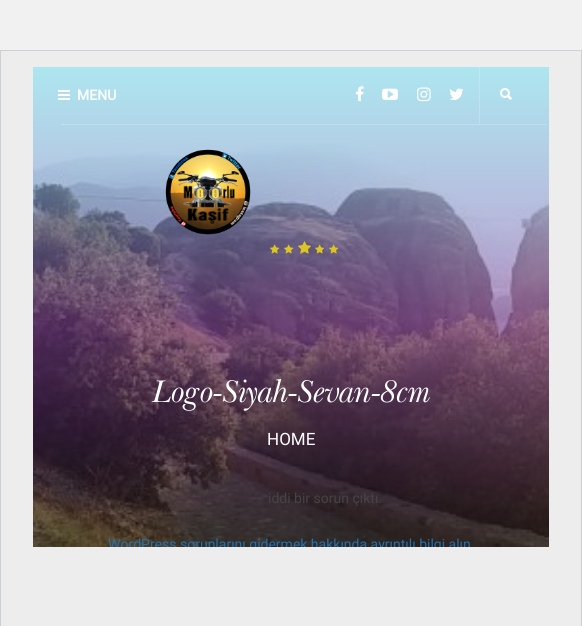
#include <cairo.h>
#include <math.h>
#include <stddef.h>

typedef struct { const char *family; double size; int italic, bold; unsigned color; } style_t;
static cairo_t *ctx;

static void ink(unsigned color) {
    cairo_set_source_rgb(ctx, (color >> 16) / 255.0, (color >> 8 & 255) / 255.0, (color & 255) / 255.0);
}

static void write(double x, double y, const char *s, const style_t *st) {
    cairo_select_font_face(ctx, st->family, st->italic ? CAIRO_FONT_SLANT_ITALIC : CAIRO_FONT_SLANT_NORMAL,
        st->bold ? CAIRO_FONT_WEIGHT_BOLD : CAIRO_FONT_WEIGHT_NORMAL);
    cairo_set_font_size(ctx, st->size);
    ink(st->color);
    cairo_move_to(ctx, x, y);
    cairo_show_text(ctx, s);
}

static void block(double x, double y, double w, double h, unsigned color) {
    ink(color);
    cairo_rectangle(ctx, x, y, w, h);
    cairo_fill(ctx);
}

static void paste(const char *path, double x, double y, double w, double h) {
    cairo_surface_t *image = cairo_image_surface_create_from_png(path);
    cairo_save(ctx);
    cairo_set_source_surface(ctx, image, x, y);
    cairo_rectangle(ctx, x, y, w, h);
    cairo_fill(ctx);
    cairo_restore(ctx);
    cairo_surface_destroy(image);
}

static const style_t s1 = {"Roboto", 14, 0, 1, 0xffffff};
static const style_t s2 = {"Baskerville Light", 37, 1, 0, 0xffffff};
static const style_t s3 = {"Roboto", 17, 0, 0, 0xffffff};
static const style_t s4 = {"Roboto", 14, 0, 0, 0x444444};
static const style_t s5 = {"Roboto", 14, 0, 0, 0x2271b1};

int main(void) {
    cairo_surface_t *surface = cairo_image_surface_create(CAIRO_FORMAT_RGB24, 582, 626);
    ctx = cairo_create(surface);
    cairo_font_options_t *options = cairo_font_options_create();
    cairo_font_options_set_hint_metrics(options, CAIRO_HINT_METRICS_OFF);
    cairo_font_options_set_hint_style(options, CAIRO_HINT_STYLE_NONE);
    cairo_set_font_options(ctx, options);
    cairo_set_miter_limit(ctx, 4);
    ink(0xf1f1f1);
    cairo_paint(ctx);
    ink(0xededed);
    cairo_rectangle(ctx, 0.5, 50.5, 581, 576);
    cairo_fill_preserve(ctx);
    ink(0xccd0d4);
    cairo_set_line_width(ctx, 1);
    cairo_stroke(ctx);
    paste("pic13.png", 33, 67, 516, 480);
    paste("pic1.png", 58, 90, 12, 10);
    write(77, 100, "MENU", &s1);
    paste("pic2.png", 355, 86, 9, 16);
    paste("pic3.png", 382, 88, 16, 12);
    paste("pic4.png", 417, 87, 14, 15);
    paste("pic5.png", 449, 88, 15, 12);
    cairo_set_source_rgba(ctx, 1, 1, 1, 0.2);
    cairo_rectangle(ctx, 479, 67, 1, 57);
    cairo_fill(ctx);
    paste("pic6.png", 500, 88, 12, 12);
    block(61, 124, 486, 1, 0xc1deed);
    paste("pic7.png", 165, 149, 86, 86);
    paste("pic8.png", 270, 244, 10, 10);
    paste("pic9.png", 284, 244, 10, 10);
    paste("pic10.png", 298, 241, 13, 13);
    paste("pic11.png", 315, 244, 10, 10);
    paste("pic12.png", 329, 244, 10, 10);
    write(152, 402, "Logo-Siyah-Sevan-8cm", &s2);
    write(267, 445, "HOME", &s3);
    write(268, 503, "iddi bir sorun çıktı.", &s4);
    cairo_save(ctx);
    cairo_rectangle(ctx, 33, 67, 516, 480);
    cairo_clip(ctx);
    write(108, 549, "WordPress sorunlarını gidermek hakkında ayrıntılı bilgi alın", &s5);
    cairo_restore(ctx);
    cairo_surface_write_to_png(surface, "screenshot.png");
    cairo_font_options_destroy(options);
    cairo_destroy(ctx);
    cairo_surface_destroy(surface);
    return 0;
}
